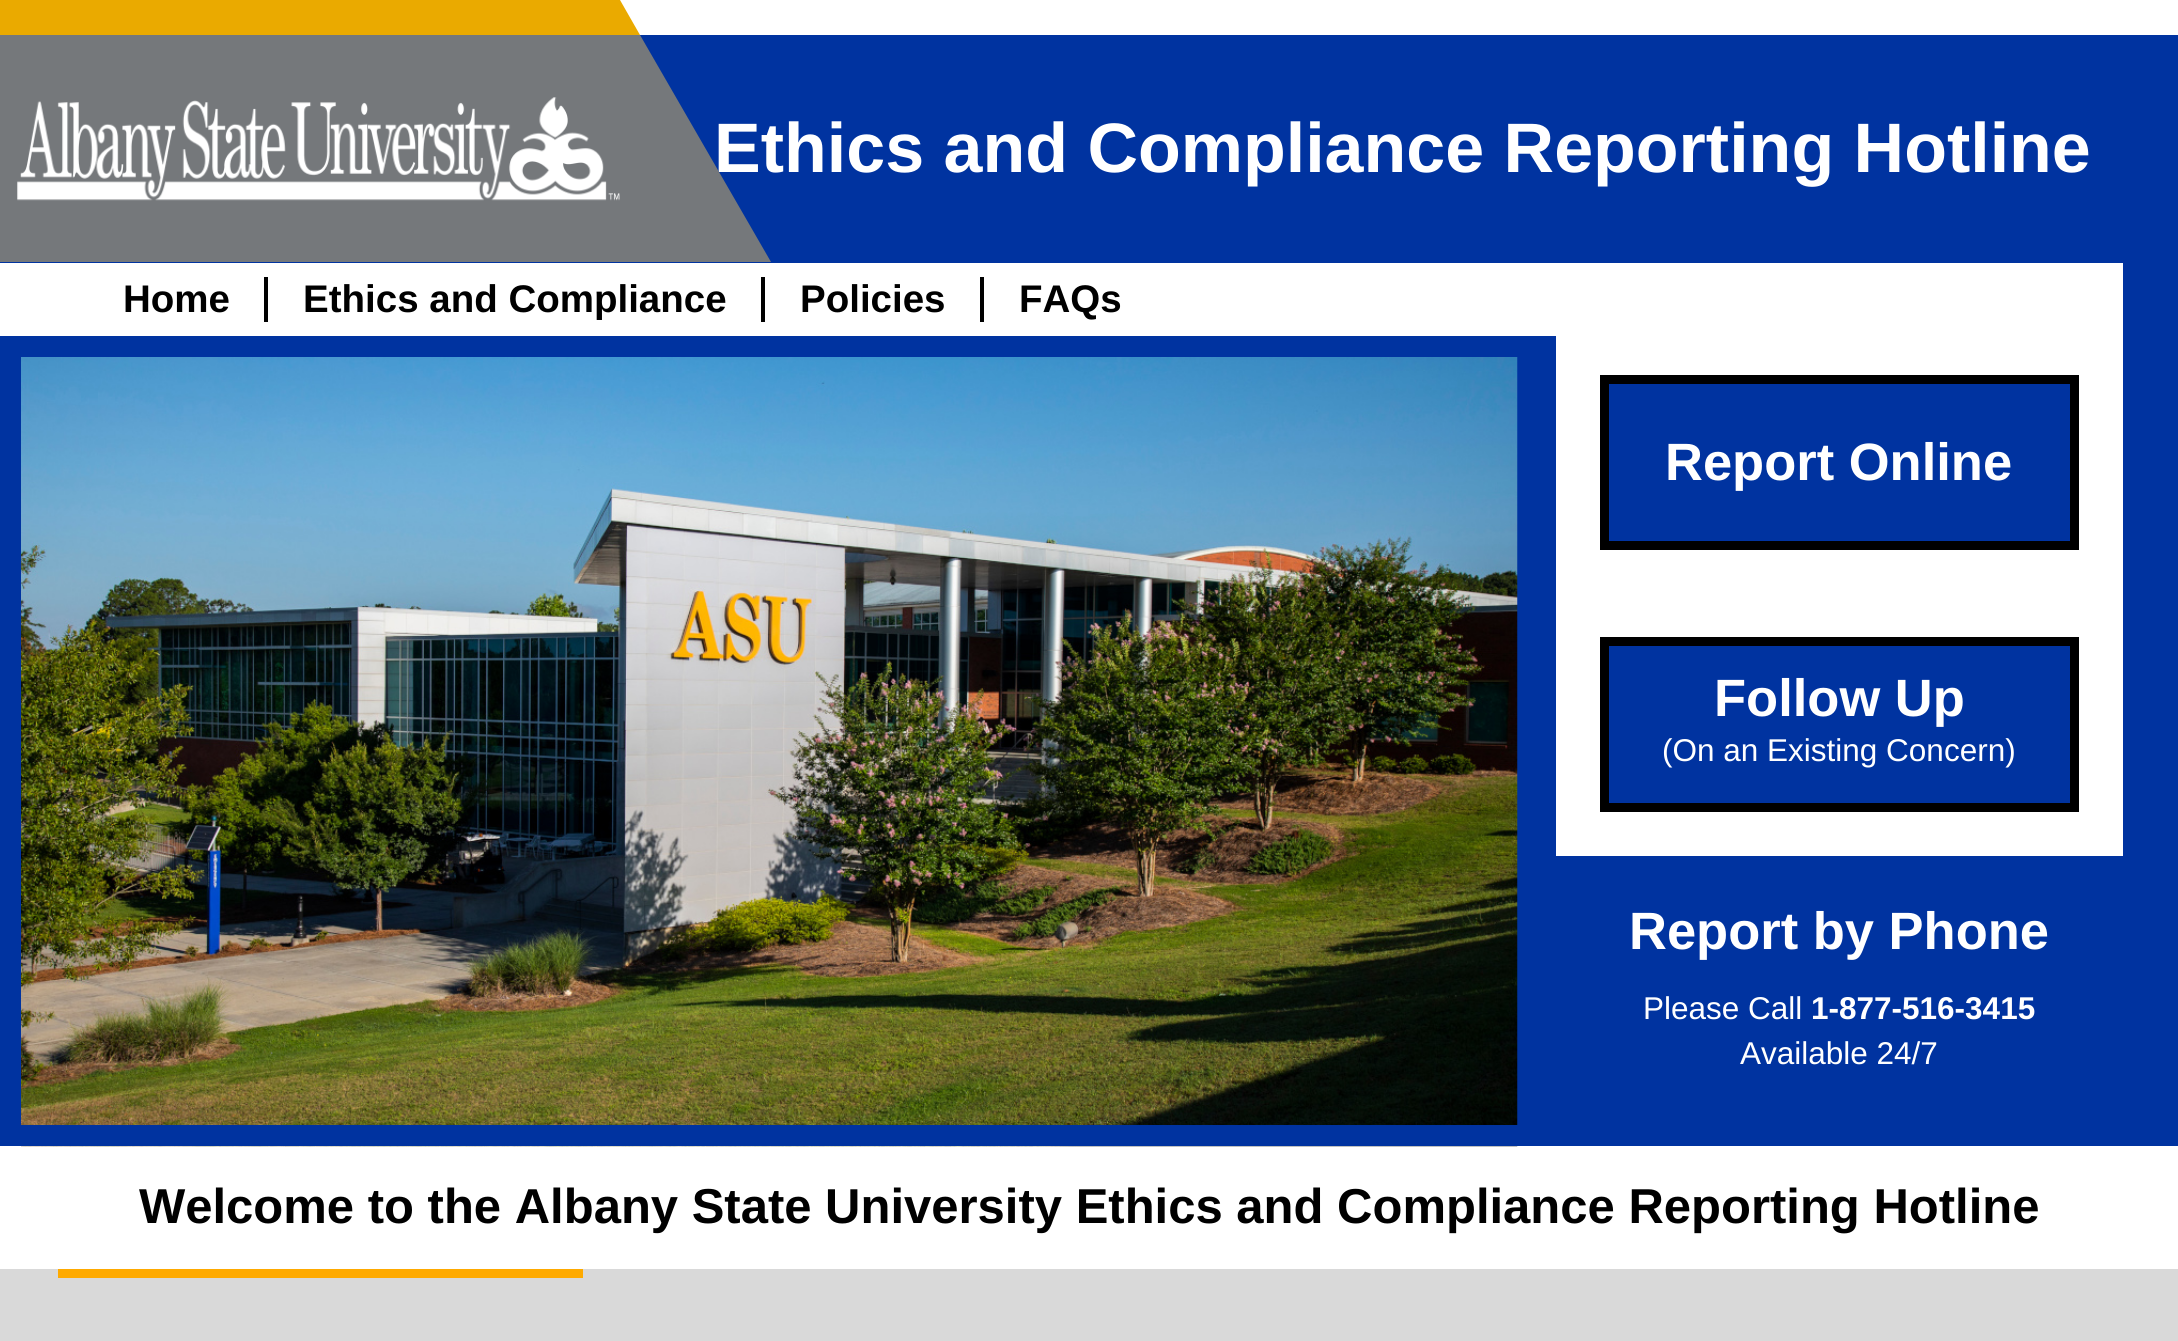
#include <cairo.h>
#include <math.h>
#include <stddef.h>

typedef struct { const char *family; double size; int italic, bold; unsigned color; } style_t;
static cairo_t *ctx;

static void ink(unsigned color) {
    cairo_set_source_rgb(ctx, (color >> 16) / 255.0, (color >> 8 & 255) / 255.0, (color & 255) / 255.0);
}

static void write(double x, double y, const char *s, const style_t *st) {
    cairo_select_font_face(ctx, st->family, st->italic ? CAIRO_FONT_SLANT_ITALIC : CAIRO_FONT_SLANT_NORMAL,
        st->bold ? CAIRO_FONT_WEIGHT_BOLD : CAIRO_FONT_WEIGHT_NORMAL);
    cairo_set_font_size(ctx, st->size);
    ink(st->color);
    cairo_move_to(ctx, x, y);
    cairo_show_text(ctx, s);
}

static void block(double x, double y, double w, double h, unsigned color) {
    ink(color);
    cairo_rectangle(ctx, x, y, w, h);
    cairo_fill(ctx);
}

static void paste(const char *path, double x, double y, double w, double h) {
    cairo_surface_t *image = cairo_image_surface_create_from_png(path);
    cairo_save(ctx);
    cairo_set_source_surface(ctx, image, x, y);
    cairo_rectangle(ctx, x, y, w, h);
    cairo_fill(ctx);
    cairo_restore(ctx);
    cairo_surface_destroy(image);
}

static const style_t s1 = {"Liberation Sans", 70, 0, 1, 0xffffff};
static const style_t s2 = {"Liberation Sans", 38.5, 0, 1, 0x000000};
static const style_t s3 = {"Liberation Sans", 52.5, 0, 1, 0xffffff};
static const style_t s4 = {"Liberation Sans", 31.5, 0, 0, 0xffffff};
static const style_t s5 = {"Liberation Sans", 31.5, 0, 1, 0xffffff};
static const style_t s6 = {"Liberation Sans", 49, 0, 1, 0x000000};

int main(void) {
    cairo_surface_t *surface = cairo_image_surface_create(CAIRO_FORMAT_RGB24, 2178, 1341);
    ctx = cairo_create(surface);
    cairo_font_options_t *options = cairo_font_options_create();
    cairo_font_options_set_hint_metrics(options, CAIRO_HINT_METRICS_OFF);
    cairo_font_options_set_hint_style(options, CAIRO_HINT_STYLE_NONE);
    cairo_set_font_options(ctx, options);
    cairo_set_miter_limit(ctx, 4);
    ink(0xffffff);
    cairo_paint(ctx);
    ink(0xeaaa00);
    cairo_new_path(ctx);
    cairo_move_to(ctx, -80, 0);
    cairo_line_to(ctx, 620, 0);
    cairo_line_to(ctx, 640, 35);
    cairo_line_to(ctx, -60, 35);
    cairo_close_path(ctx);
    cairo_fill(ctx);
    block(0, 35, 2178, 228, 0x0033a0);
    write(714, 172, "Ethics and Compliance Reporting Hotline", &s1);
    ink(0x75787b);
    cairo_new_path(ctx);
    cairo_move_to(ctx, -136, 35);
    cairo_line_to(ctx, 640, 35);
    cairo_line_to(ctx, 771, 262);
    cairo_line_to(ctx, -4, 262);
    cairo_close_path(ctx);
    cairo_fill(ctx);
    paste("pic1.png", 17, 97, 603, 104);
    block(2123, 263, 55, 73, 0x0033a0);
    block(264, 277, 4, 45, 0x000000);
    write(123, 312, "Home", &s2);
    block(761, 277, 4, 45, 0x000000);
    write(303, 312, "Ethics and Compliance", &s2);
    block(980, 277, 4, 45, 0x000000);
    write(800, 312, "Policies", &s2);
    write(1019, 312, "FAQs", &s2);
    block(1517, 357, 641, 768, 0x0033a0);
    paste("pic2.png", 21, 357, 1497, 790);
    cairo_rectangle(ctx, 10.5, 346.5, 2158, 789);
    cairo_set_line_width(ctx, 21);
    cairo_stroke(ctx);
    cairo_rectangle(ctx, 1578, 353, 523, 218);
    ink(0xffffff);
    cairo_set_line_width(ctx, 44);
    cairo_stroke(ctx);
    cairo_rectangle(ctx, 1604.5, 379.5, 470, 166);
    ink(0x000000);
    cairo_set_line_width(ctx, 9);
    cairo_stroke(ctx);
    write(1665, 480, "Report Online", &s3);
    cairo_rectangle(ctx, 1578, 615, 523, 219);
    cairo_set_line_width(ctx, 44);
    cairo_stroke(ctx);
    cairo_rectangle(ctx, 1604.5, 641.5, 470, 166);
    ink(0x000000);
    cairo_set_line_width(ctx, 9);
    cairo_stroke(ctx);
    write(1714, 716, "Follow Up", &s3);
    write(1662, 761, "(On an Existing Concern)", &s4);
    write(1629, 949, "Report by Phone", &s3);
    write(1643, 1019, "Please Call", &s4);
    write(1811, 1019, "1-877-516-3415", &s5);
    write(1740, 1064, "Available 24/7", &s4);
    write(139, 1223, "Welcome to the Albany State University Ethics and Compliance Reporting Hotline", &s6);
    block(0, 1269, 2178, 72, 0xd9d9d9);
    block(58, 1269, 525, 9, 0xfeaa00);
    cairo_surface_write_to_png(surface, "screenshot.png");
    cairo_font_options_destroy(options);
    cairo_destroy(ctx);
    cairo_surface_destroy(surface);
    return 0;
}
